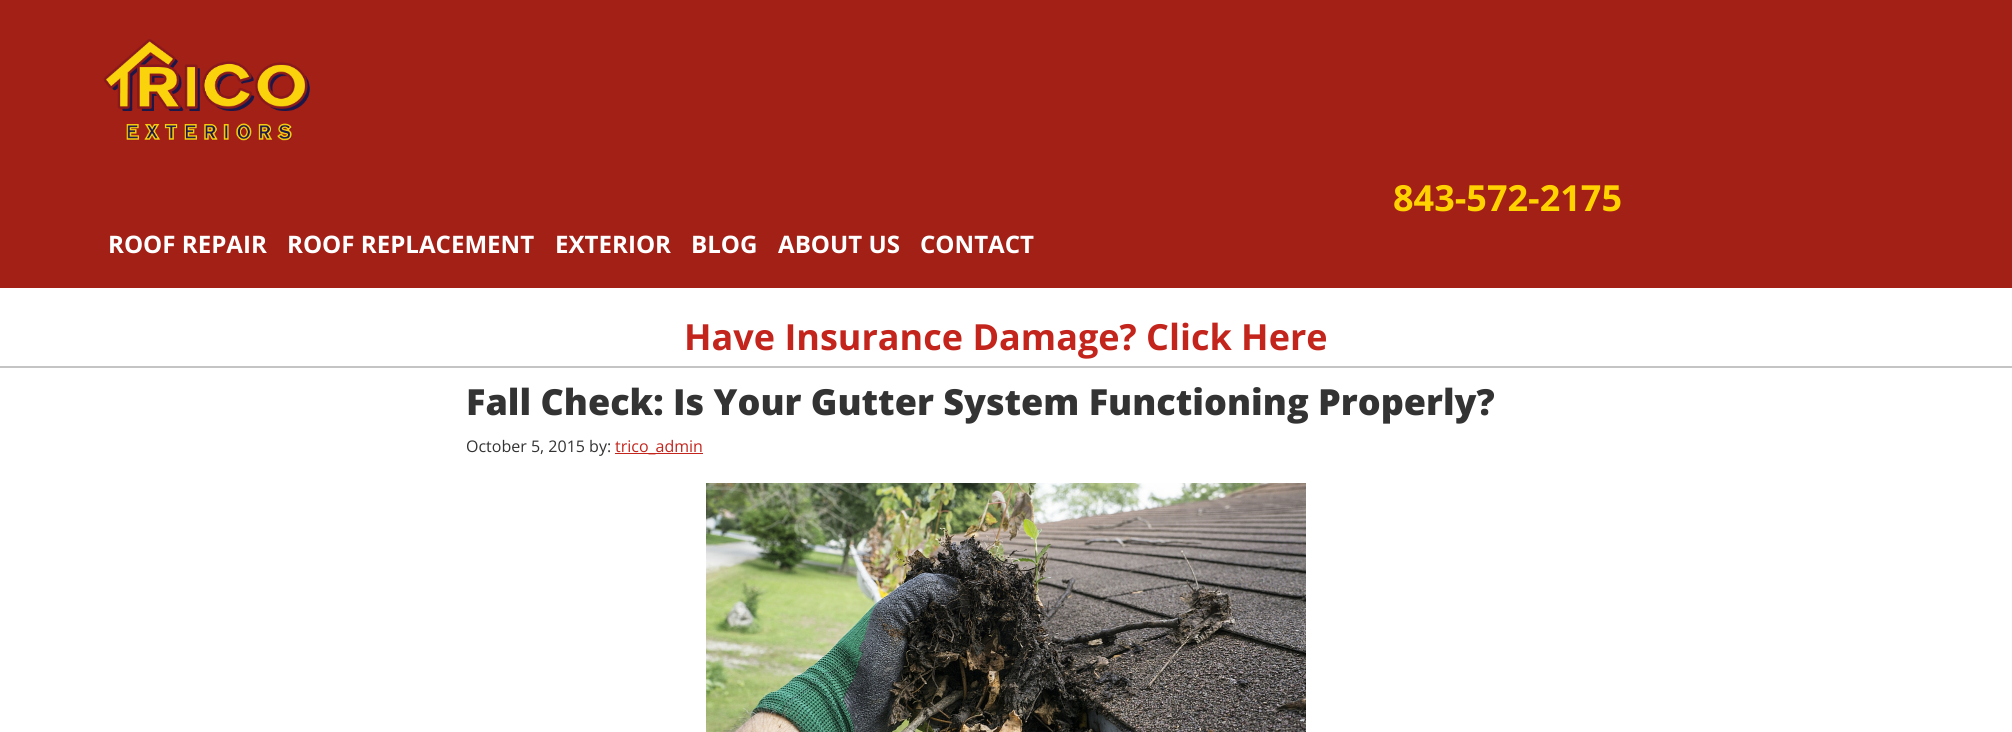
#include <cairo.h>
#include <math.h>
#include <stddef.h>

typedef struct { const char *family; double size; int italic, bold; unsigned color; } style_t;
static cairo_t *ctx;

static void ink(unsigned color) {
    cairo_set_source_rgb(ctx, (color >> 16) / 255.0, (color >> 8 & 255) / 255.0, (color & 255) / 255.0);
}

static void write(double x, double y, const char *s, const style_t *st) {
    cairo_select_font_face(ctx, st->family, st->italic ? CAIRO_FONT_SLANT_ITALIC : CAIRO_FONT_SLANT_NORMAL,
        st->bold ? CAIRO_FONT_WEIGHT_BOLD : CAIRO_FONT_WEIGHT_NORMAL);
    cairo_set_font_size(ctx, st->size);
    ink(st->color);
    cairo_move_to(ctx, x, y);
    cairo_show_text(ctx, s);
}

static void block(double x, double y, double w, double h, unsigned color) {
    ink(color);
    cairo_rectangle(ctx, x, y, w, h);
    cairo_fill(ctx);
}

static void paste(const char *path, double x, double y, double w, double h) {
    cairo_surface_t *image = cairo_image_surface_create_from_png(path);
    cairo_save(ctx);
    cairo_set_source_surface(ctx, image, x, y);
    cairo_rectangle(ctx, x, y, w, h);
    cairo_fill(ctx);
    cairo_restore(ctx);
    cairo_surface_destroy(image);
}

static const style_t s1 = {"Open Sans", 36, 0, 1, 0xffd200};
static const style_t s2 = {"Open Sans", 24.1, 0, 1, 0xffffff};
static const style_t s3 = {"Open Sans", 36, 0, 1, 0xc3251d};
static const style_t s4 = {"Open Sans ExtraBold", 36, 0, 0, 0x333333};
static const style_t s5 = {"Open Sans", 16, 0, 0, 0x333333};
static const style_t s6 = {"Open Sans", 16, 0, 0, 0xc3251d};

int main(void) {
    cairo_surface_t *surface = cairo_image_surface_create(CAIRO_FORMAT_RGB24, 2012, 732);
    ctx = cairo_create(surface);
    cairo_font_options_t *options = cairo_font_options_create();
    cairo_font_options_set_hint_metrics(options, CAIRO_HINT_METRICS_OFF);
    cairo_font_options_set_hint_style(options, CAIRO_HINT_STYLE_NONE);
    cairo_set_font_options(ctx, options);
    cairo_set_miter_limit(ctx, 4);
    ink(0xffffff);
    cairo_paint(ctx);
    block(0, 0, 2012, 288, 0xa32016);
    paste("pic1.png", 103, 39, 207, 102);
    write(1393, 211, "843-572-2175", &s1);
    write(108, 253, "ROOF REPAIR", &s2);
    write(287, 253, "ROOF REPLACEMENT", &s2);
    write(555, 253, "EXTERIOR", &s2);
    write(691, 253, "BLOG", &s2);
    write(778, 253, "ABOUT US", &s2);
    write(920, 253, "CONTACT", &s2);
    block(0, 366, 2012, 2, 0xc4c4c4);
    write(684, 350, "Have Insurance Damage? Click Here", &s3);
    write(466, 415, "Fall Check: Is Your Gutter System Functioning Properly?", &s4);
    write(466, 452, "October 5, 2015 by:", &s5);
    block(615, 453, 88, 1, 0xc3251d);
    write(615, 452, "trico_admin", &s6);
    paste("pic2.png", 706, 483, 600, 249);
    cairo_surface_write_to_png(surface, "screenshot.png");
    cairo_font_options_destroy(options);
    cairo_destroy(ctx);
    cairo_surface_destroy(surface);
    return 0;
}
